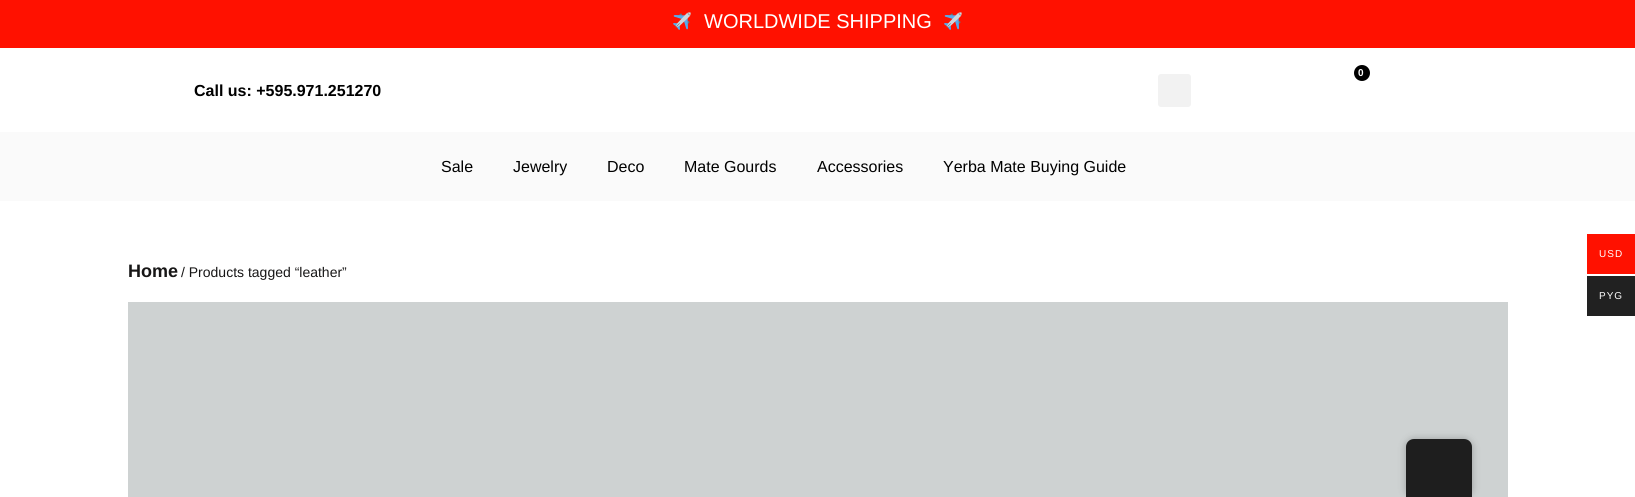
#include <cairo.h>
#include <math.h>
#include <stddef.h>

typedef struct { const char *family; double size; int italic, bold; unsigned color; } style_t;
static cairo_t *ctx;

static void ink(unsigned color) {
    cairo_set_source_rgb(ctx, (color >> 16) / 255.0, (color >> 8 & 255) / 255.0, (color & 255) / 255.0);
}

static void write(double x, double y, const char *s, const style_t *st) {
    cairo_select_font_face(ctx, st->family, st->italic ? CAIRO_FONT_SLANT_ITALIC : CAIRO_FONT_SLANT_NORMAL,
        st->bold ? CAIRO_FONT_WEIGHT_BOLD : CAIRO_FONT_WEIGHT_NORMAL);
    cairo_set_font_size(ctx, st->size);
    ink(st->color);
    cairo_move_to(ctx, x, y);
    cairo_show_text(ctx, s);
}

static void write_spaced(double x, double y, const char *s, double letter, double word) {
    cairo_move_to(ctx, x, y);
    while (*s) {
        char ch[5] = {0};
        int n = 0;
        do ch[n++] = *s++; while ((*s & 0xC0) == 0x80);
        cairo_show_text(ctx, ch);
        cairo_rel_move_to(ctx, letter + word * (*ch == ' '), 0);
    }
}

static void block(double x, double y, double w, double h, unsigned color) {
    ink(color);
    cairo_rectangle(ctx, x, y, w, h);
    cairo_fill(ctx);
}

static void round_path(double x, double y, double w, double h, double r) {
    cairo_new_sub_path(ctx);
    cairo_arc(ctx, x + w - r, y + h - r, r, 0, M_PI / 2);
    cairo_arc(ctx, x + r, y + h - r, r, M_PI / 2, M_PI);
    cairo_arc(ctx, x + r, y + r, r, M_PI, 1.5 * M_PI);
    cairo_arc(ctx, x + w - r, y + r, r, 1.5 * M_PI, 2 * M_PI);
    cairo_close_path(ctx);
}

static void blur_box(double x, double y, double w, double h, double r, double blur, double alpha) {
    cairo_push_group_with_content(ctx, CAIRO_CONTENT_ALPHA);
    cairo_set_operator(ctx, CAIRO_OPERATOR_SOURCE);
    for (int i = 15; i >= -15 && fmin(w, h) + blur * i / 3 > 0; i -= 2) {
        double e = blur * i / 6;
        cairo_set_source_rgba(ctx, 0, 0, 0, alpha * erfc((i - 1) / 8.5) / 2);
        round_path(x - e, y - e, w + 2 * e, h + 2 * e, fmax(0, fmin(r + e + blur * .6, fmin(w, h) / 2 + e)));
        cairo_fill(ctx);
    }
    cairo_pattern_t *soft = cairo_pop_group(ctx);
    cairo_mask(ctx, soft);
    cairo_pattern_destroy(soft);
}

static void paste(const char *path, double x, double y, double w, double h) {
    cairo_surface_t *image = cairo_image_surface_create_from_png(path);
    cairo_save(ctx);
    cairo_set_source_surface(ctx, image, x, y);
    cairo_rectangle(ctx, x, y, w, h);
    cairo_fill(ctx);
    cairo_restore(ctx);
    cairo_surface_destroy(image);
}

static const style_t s1 = {"Liberation Sans", 20, 0, 0, 0xffffff};
static const style_t s2 = {"Liberation Sans", 16, 0, 1, 0x000000};
static const style_t s3 = {"Liberation Sans", 16, 0, 0, 0x000000};
static const style_t s4 = {"Liberation Sans", 18, 0, 1, 0x171616};
static const style_t s5 = {"Liberation Sans", 14, 0, 0, 0x171616};

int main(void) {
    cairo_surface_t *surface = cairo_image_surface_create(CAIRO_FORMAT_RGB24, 1635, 497);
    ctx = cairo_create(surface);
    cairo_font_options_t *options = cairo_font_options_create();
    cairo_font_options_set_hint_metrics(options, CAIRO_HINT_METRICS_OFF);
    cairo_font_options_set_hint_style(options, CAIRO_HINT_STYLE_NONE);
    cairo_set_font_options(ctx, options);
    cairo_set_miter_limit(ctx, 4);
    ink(0xffffff);
    cairo_paint(ctx);
    block(0, 0, 1635, 48, 0xff1100);
    paste("pic1.png", 673, 12, 18, 18);
    write(704, 28, "WORLDWIDE SHIPPING", &s1);
    paste("pic1.png", 944, 12, 18, 18);
    ink(0x000000);
    cairo_arc(ctx, 1362, 73, 8, 0, 2 * M_PI);
    cairo_fill(ctx);
    cairo_select_font_face(ctx, "Liberation Sans", CAIRO_FONT_SLANT_NORMAL, CAIRO_FONT_WEIGHT_BOLD);
    cairo_set_font_size(ctx, 10);
    ink(0xffffff);
    write_spaced(1358, 76, "0", 2, 0);
    write(194, 96, "Call us: +595.971.251270", &s2);
    ink(0xf2f2f2);
    round_path(1158, 74, 33, 33, 3);
    cairo_fill(ctx);
    block(0, 132, 1635, 69, 0xfafafa);
    write(441, 172, "Sale", &s3);
    write(513, 172, "Jewelry", &s3);
    write(607, 172, "Deco", &s3);
    write(684, 172, "Mate Gourds", &s3);
    write(817, 172, "Accessories", &s3);
    write(943, 172, "Yerba Mate Buying Guide", &s3);
    write(128, 277, "Home", &s4);
    write(181, 277, "/ Products tagged “leather”", &s5);
    block(128, 302, 1380, 195, 0xced2d2);
    block(1587, 234, 48, 40, 0xff1100);
    cairo_set_font_size(ctx, 10);
    ink(0xffffff);
    write_spaced(1599, 257, "USD", 1, 0);
    block(1587, 276, 48, 40, 0x212121);
    ink(0xffffff);
    write_spaced(1599, 299, "PYG", 1, 0);
    ink(0x000000);
    blur_box(1406, 439, 66, 58, 8, 4, 0.25);
    ink(0x1e1e1e);
    cairo_new_path(ctx);
    cairo_move_to(ctx, 1414, 439);
    cairo_line_to(ctx, 1464, 439);
    cairo_curve_to(ctx, 1468.5, 439, 1472, 442.5, 1472, 447);
    cairo_line_to(ctx, 1472, 497);
    cairo_line_to(ctx, 1406, 497);
    cairo_line_to(ctx, 1406, 447);
    cairo_curve_to(ctx, 1406, 442.5, 1409.5, 439, 1414, 439);
    cairo_close_path(ctx);
    cairo_fill(ctx);
    cairo_surface_write_to_png(surface, "screenshot.png");
    cairo_font_options_destroy(options);
    cairo_destroy(ctx);
    cairo_surface_destroy(surface);
    return 0;
}
